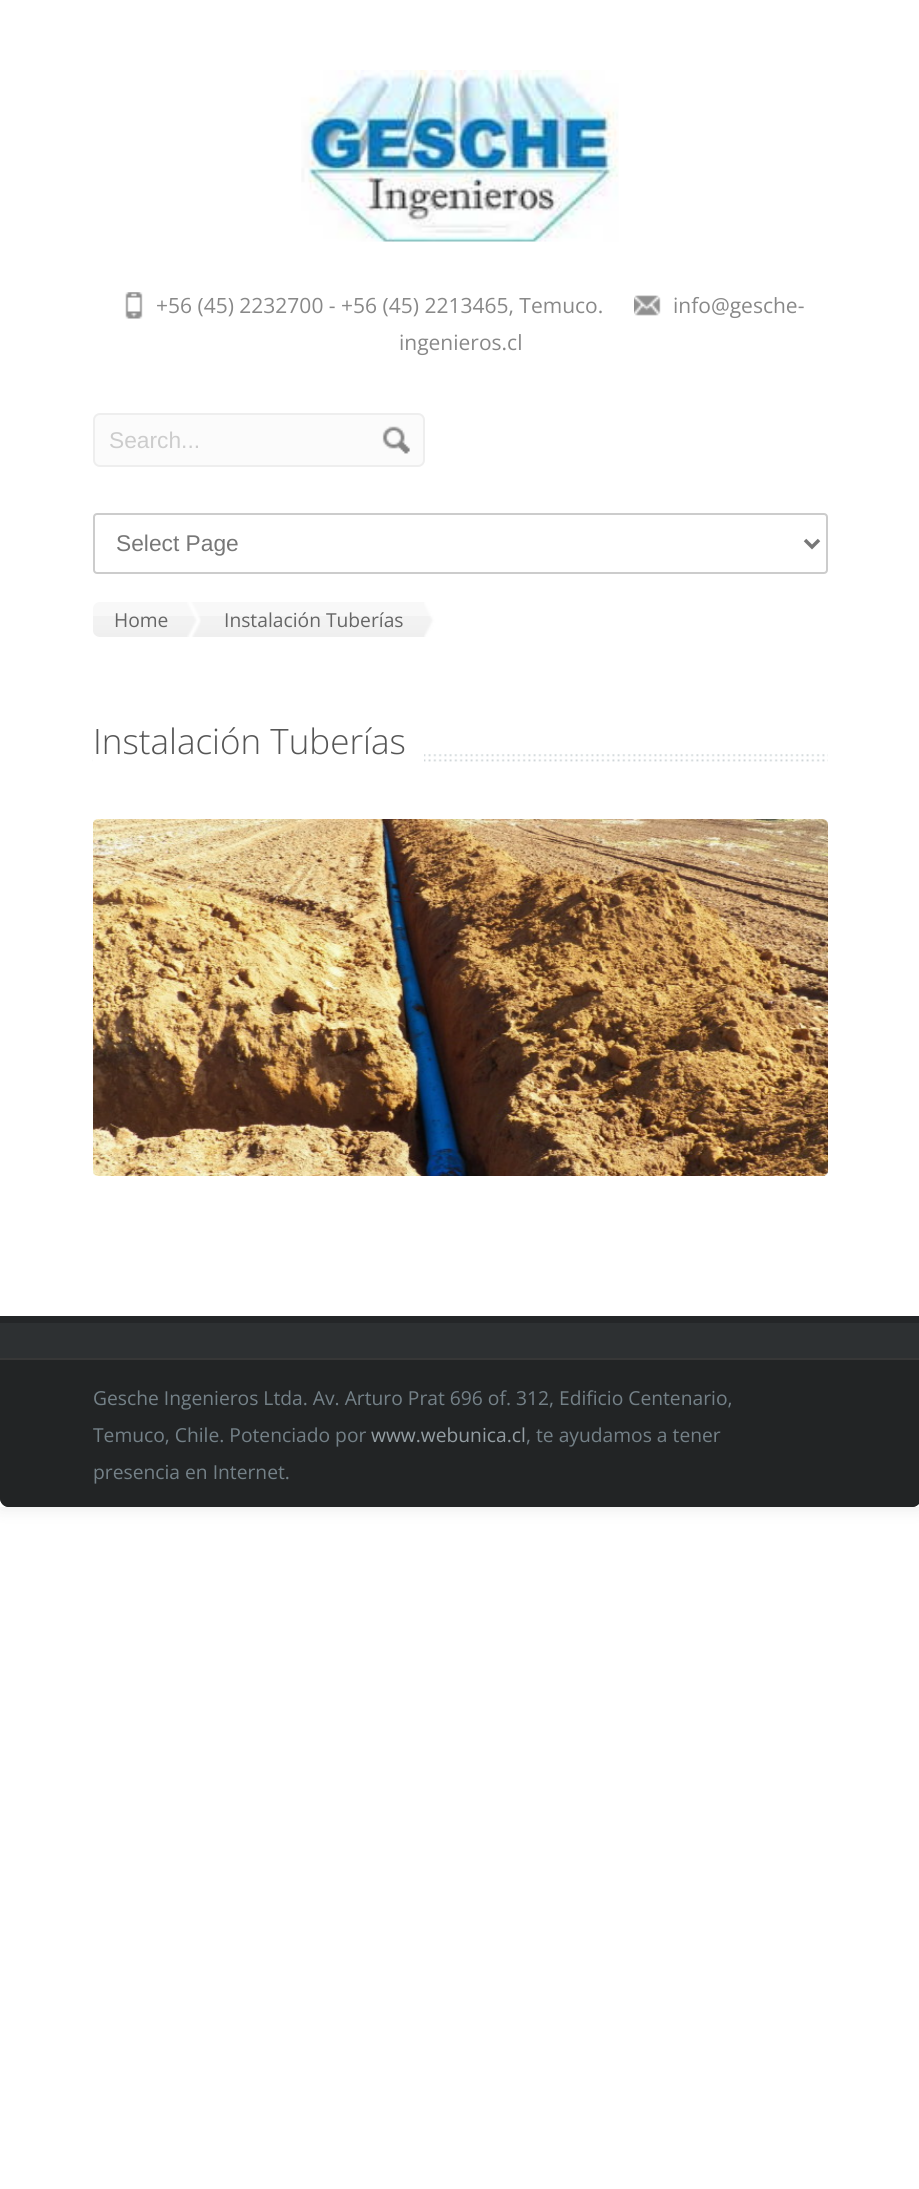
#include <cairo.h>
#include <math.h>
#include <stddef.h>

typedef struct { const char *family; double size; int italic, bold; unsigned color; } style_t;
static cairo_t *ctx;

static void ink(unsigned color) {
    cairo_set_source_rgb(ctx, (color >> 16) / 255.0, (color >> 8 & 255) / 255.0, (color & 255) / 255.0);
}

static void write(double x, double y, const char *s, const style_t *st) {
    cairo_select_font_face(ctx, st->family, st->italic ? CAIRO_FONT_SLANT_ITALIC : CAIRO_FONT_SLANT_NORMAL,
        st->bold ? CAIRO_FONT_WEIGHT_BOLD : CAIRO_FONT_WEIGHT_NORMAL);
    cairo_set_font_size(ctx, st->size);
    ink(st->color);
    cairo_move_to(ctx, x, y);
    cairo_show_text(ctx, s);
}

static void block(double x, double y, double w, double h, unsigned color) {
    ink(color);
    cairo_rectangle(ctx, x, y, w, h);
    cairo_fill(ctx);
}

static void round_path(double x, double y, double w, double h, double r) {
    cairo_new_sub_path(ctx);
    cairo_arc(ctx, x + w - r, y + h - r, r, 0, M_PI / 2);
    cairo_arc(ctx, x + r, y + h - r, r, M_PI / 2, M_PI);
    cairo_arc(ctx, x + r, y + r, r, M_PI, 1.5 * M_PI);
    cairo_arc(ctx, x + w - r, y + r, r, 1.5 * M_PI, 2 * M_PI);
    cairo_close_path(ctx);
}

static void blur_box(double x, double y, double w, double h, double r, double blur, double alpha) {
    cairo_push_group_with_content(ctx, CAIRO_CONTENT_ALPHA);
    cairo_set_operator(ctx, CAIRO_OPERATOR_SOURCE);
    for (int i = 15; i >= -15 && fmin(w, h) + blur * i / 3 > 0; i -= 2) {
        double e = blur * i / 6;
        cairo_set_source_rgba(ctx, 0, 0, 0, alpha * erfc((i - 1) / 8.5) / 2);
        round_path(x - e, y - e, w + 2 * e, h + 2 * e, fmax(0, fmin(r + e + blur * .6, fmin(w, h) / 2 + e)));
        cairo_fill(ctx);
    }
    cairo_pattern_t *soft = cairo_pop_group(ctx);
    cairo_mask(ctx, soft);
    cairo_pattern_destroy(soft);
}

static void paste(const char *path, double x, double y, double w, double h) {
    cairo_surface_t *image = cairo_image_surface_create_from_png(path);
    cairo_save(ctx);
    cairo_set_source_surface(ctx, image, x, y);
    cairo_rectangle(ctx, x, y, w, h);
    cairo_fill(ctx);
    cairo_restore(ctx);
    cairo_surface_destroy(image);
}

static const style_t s1 = {"Open Sans", 21, 0, 0, 0x888888};
static const style_t s2 = {"Liberation Sans", 22.75, 0, 0, 0xcccccc};
static const style_t s3 = {"Liberation Sans", 22.75, 0, 0, 0x777777};
static const style_t s4 = {"Open Sans", 19.25, 0, 0, 0x666666};
static const style_t s5 = {"Open Sans Light", 35, 0, 0, 0x555555};
static const style_t s6 = {"Open Sans", 19.25, 0, 0, 0x748188};
static const style_t s7 = {"Open Sans", 19.25, 0, 0, 0x949ea3};

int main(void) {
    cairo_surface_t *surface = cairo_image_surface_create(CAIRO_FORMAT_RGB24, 919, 2189);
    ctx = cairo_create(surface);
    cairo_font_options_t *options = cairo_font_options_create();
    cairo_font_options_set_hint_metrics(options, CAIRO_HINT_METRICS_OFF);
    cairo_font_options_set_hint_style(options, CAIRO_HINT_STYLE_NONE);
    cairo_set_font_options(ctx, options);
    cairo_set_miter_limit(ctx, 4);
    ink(0xffffff);
    cairo_paint(ctx);
    ink(0x000000);
    blur_box(0, 0, 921, 1507, 0, 9, 0.1);
    block(0, 0, 919, 1507, 0xffffff);
    paste("pic1.png", 301, 70, 318, 172);
    paste("pic2.png", 125, 292, 18, 27);
    write(156, 313, "+56 (45) 2232700 - +56 (45) 2213465, Temuco.", &s1);
    paste("pic3.png", 634, 295, 27, 21);
    write(673, 313, "info@gesche-", &s1);
    write(399, 350, "ingenieros.cl", &s1);
    ink(0xfbfbfb);
    round_path(94, 414, 330, 52, 6);
    cairo_fill_preserve(ctx);
    ink(0xeeeeee);
    cairo_stroke(ctx);
    write(109, 448, "Search...", &s2);
    paste("pic4.png", 382, 426, 28, 28);
    round_path(94, 514, 733, 59, 3);
    cairo_stroke(ctx);
    cairo_new_path(ctx);
    cairo_move_to(ctx, 805, 540);
    cairo_line_to(ctx, 812, 547);
    cairo_line_to(ctx, 819, 540);
    ink(0x777777);
    cairo_set_line_width(ctx, 3.5);
    cairo_stroke(ctx);
    write(116, 551, "Select Page", &s3);
    ink(0xf8f8f8);
    cairo_new_path(ctx);
    cairo_move_to(ctx, 100, 602);
    cairo_line_to(ctx, 203, 602);
    cairo_line_to(ctx, 203, 637);
    cairo_line_to(ctx, 100, 637);
    cairo_curve_to(ctx, 96, 637, 93, 634, 93, 630);
    cairo_line_to(ctx, 93, 609);
    cairo_curve_to(ctx, 93, 605, 96, 602, 100, 602);
    cairo_close_path(ctx);
    cairo_fill(ctx);
    paste("pic5.png", 93, 616, 110, 21);
    paste("pic6.png", 187, 602, 14, 35);
    write(114, 627, "Home", &s4);
    block(203, 602, 234, 35, 0xf8f8f8);
    paste("pic7.png", 203, 616, 234, 21);
    paste("pic8.png", 424, 602, 15, 35);
    write(224, 627, "Instalación Tuberías", &s4);
    paste("pic9.png", 92, 754, 736, 8);
    block(93, 754, 331, 8, 0xffffff);
    write(93, 754, "Instalación Tuberías", &s5);
    paste("pic10.png", 93, 819, 735, 357);
    ink(0x2d3032);
    cairo_new_path(ctx);
    cairo_move_to(ctx, 0, 1316);
    cairo_line_to(ctx, 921, 1316);
    cairo_line_to(ctx, 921, 1498);
    cairo_curve_to(ctx, 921, 1503, 917, 1507, 912, 1507);
    cairo_line_to(ctx, 9, 1507);
    cairo_curve_to(ctx, 4, 1507, 0, 1503, 0, 1498);
    cairo_close_path(ctx);
    cairo_fill(ctx);
    block(0, 1316, 919, 7, 0x242628);
    ink(0x222425);
    cairo_new_path(ctx);
    cairo_move_to(ctx, 0, 1358);
    cairo_line_to(ctx, 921, 1358);
    cairo_line_to(ctx, 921, 1498);
    cairo_curve_to(ctx, 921, 1503, 917, 1507, 912, 1507);
    cairo_line_to(ctx, 9, 1507);
    cairo_curve_to(ctx, 4, 1507, 0, 1503, 0, 1498);
    cairo_close_path(ctx);
    cairo_fill(ctx);
    block(0, 1358, 919, 2, 0x373737);
    write(93, 1405, "Gesche Ingenieros Ltda. Av. Arturo Prat 696 of. 312, Edificio Centenario,", &s6);
    write(93, 1442, "Temuco, Chile. Potenciado por", &s6);
    write(371, 1442, "www.webunica.cl", &s7);
    write(526, 1442, ", te ayudamos a tener", &s6);
    write(93, 1479, "presencia en Internet.", &s6);
    cairo_surface_write_to_png(surface, "screenshot.png");
    cairo_font_options_destroy(options);
    cairo_destroy(ctx);
    cairo_surface_destroy(surface);
    return 0;
}
